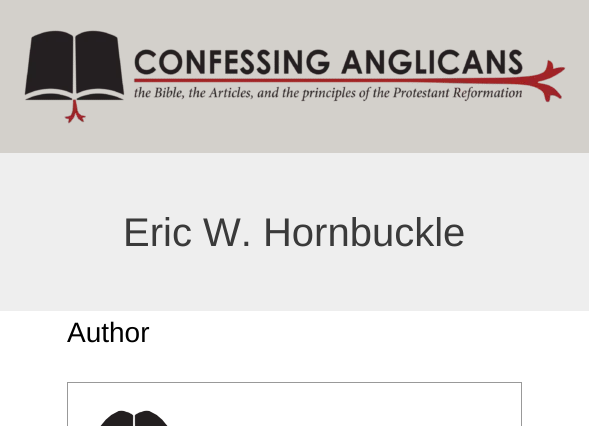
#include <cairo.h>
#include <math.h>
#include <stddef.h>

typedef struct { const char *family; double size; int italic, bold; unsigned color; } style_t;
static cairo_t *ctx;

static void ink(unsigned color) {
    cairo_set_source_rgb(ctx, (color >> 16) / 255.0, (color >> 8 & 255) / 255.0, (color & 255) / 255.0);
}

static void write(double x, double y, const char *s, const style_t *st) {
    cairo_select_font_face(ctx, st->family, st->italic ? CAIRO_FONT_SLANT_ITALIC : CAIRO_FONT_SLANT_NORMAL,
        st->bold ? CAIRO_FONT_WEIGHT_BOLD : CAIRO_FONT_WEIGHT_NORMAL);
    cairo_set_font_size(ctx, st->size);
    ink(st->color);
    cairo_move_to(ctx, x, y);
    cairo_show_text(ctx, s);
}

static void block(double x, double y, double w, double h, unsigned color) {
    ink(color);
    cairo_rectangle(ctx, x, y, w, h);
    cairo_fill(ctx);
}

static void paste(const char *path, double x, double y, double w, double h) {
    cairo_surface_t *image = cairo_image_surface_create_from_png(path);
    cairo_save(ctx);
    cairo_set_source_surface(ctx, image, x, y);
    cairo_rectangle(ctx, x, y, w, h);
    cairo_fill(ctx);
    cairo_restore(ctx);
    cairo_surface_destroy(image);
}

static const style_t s1 = {"Liberation Sans", 40, 0, 0, 0x3a3a3a};
static const style_t s2 = {"Liberation Sans", 28, 0, 0, 0x000000};

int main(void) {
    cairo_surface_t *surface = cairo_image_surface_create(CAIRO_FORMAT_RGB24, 589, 426);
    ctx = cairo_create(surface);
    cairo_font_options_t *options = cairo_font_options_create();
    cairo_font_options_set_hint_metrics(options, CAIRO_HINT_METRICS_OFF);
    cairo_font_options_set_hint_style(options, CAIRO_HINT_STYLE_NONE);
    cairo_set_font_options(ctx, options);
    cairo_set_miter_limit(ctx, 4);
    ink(0xffffff);
    cairo_paint(ctx);
    block(0, 0, 589, 153, 0xd3d0cb);
    paste("pic1.png", 24, 30, 542, 94);
    block(0, 153, 589, 158, 0xeeeeee);
    write(123, 246, "Eric W. Hornbuckle", &s1);
    write(67, 342, "Author", &s2);
    cairo_rectangle(ctx, 67.5, 382.5, 454, 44);
    ink(0x999999);
    cairo_set_line_width(ctx, 1);
    cairo_stroke(ctx);
    paste("pic2.png", 100, 410, 68, 16);
    cairo_surface_write_to_png(surface, "screenshot.png");
    cairo_font_options_destroy(options);
    cairo_destroy(ctx);
    cairo_surface_destroy(surface);
    return 0;
}
